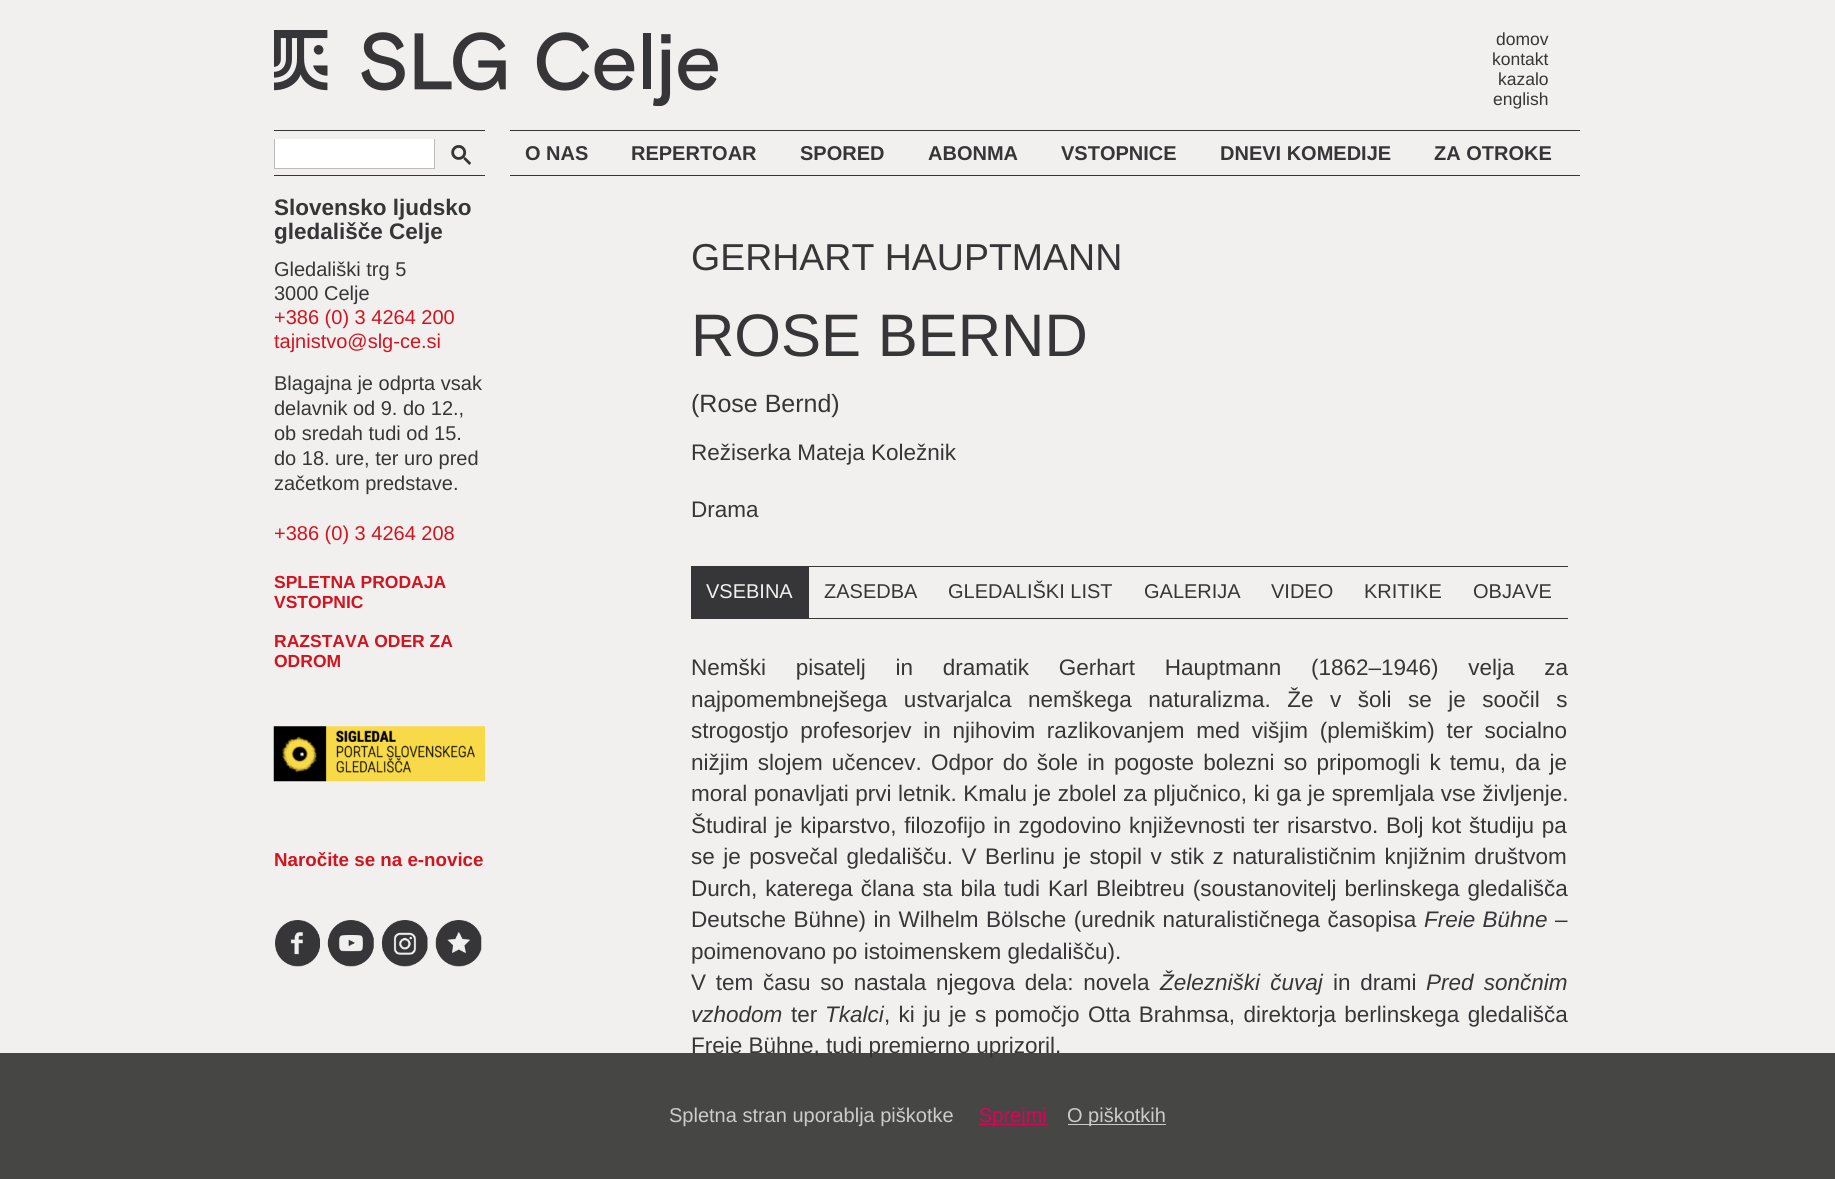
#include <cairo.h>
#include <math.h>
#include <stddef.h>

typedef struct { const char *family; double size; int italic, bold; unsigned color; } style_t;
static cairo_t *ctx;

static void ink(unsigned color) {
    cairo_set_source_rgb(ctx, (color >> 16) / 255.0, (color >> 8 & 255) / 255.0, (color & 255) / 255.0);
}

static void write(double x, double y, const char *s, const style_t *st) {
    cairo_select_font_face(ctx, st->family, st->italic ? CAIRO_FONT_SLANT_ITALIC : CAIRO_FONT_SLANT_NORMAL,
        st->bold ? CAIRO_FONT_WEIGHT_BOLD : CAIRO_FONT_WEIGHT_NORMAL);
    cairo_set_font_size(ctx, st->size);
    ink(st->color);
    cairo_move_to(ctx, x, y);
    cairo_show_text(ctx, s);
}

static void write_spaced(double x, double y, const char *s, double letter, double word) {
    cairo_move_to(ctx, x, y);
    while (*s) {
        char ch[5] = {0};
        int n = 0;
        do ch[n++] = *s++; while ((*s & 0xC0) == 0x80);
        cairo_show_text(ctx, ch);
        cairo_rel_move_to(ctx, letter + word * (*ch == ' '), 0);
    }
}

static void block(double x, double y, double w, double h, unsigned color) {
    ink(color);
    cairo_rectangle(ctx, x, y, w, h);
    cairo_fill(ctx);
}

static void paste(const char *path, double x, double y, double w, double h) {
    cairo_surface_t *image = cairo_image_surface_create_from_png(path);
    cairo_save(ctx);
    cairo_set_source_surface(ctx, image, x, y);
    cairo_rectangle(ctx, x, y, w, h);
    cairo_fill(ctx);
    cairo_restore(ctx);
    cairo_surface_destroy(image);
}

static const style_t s1 = {"Liberation Sans", 17.5, 0, 0, 0x363638};
static const style_t s2 = {"Liberation Sans", 22.5, 0, 1, 0x363638};
static const style_t s3 = {"Liberation Sans", 20, 0, 0, 0x363638};
static const style_t s4 = {"Liberation Sans", 20, 0, 0, 0xd2141f};
static const style_t s5 = {"Liberation Sans", 17.5, 0, 1, 0xd2141f};
static const style_t s6 = {"Liberation Sans", 18.75, 0, 1, 0xd2141f};
static const style_t s7 = {"Liberation Sans", 20, 0, 1, 0x363638};
static const style_t s8 = {"Liberation Sans", 37.5, 0, 0, 0x363638};
static const style_t s9 = {"Liberation Sans", 60, 0, 0, 0x363638};
static const style_t s10 = {"Liberation Sans", 25, 0, 0, 0x363638};
static const style_t s11 = {"Liberation Sans", 22.5, 0, 0, 0x363638};
static const style_t s12 = {"Liberation Sans", 20, 0, 0, 0xf1f0ef};
static const style_t s13 = {"Liberation Sans", 22.5, 1, 0, 0x363638};
static const style_t s14 = {"Liberation Sans", 20, 0, 0, 0xcccccc};
static const style_t s15 = {"Liberation Sans", 20, 0, 0, 0xe20059};

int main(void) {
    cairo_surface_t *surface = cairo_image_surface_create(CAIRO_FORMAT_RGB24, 1835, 1179);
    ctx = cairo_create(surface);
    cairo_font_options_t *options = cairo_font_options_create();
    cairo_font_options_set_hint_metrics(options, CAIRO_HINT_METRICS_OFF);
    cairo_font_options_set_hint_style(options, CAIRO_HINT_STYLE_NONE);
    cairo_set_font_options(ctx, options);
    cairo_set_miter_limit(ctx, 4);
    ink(0xf1f0ef);
    cairo_paint(ctx);
    paste("pic1.png", 274, 30, 444, 76);
    write(1496, 45, "domov", &s1);
    write(1492, 65, "kontakt", &s1);
    write(1498, 85, "kazalo", &s1);
    write(1493, 105, "english", &s1);
    block(274, 130, 211, 1, 0x363638);
    block(274, 175, 211, 1, 0x363638);
    cairo_rectangle(ctx, 274.5, 139.5, 160, 29);
    ink(0xbbbbbb);
    cairo_set_line_width(ctx, 1);
    cairo_stroke(ctx);
    block(275, 139, 159, 29, 0xffffff);
    paste("pic2.png", 451, 145, 20, 20);
    write(274, 215, "Slovensko ljudsko", &s2);
    write(274, 239, "gledališče Celje", &s2);
    write(274, 276, "Gledališki trg 5", &s3);
    write(274, 300, "3000 Celje", &s3);
    write(274, 324, "+386 (0) 3 4264 200", &s4);
    write(274, 348, "tajnistvo@slg-ce.si", &s4);
    write(274, 390, "Blagajna je odprta vsak", &s3);
    write(274, 415, "delavnik od 9. do 12.,", &s3);
    write(274, 440, "ob sredah tudi od 15.", &s3);
    write(274, 465, "do 18. ure, ter uro pred", &s3);
    write(274, 490, "začetkom predstave.", &s3);
    write(274, 540, "+386 (0) 3 4264 208", &s4);
    write(274, 588, "SPLETNA PRODAJA", &s5);
    write(274, 608, "VSTOPNIC", &s5);
    write(274, 647, "RAZSTAVA ODER ZA", &s5);
    write(274, 667, "ODROM", &s5);
    paste("pic3.png", 273, 726, 212, 56);
    write(274, 866, "Naročite se na e-novice", &s6);
    paste("pic4.png", 275, 920, 45, 47);
    paste("pic5.png", 327, 920, 47, 47);
    paste("pic6.png", 381, 920, 47, 47);
    paste("pic7.png", 435, 920, 47, 47);
    block(510, 130, 1070, 1, 0x363638);
    block(510, 175, 1070, 1, 0x363638);
    write(525, 160, "O NAS", &s7);
    write(631, 160, "REPERTOAR", &s7);
    write(800, 160, "SPORED", &s7);
    write(928, 160, "ABONMA", &s7);
    write(1061, 160, "VSTOPNICE", &s7);
    write(1220, 160, "DNEVI KOMEDIJE", &s7);
    write(1434, 160, "ZA OTROKE", &s7);
    write(691, 270, "GERHART HAUPTMANN", &s8);
    write(691, 356, "ROSE BERND", &s9);
    write(691, 412, "(Rose Bernd)", &s10);
    write(691, 460, "Režiserka Mateja Koležnik", &s11);
    write(691, 517, "Drama", &s11);
    block(691, 566, 118, 53, 0x363638);
    write(706, 598, "VSEBINA", &s12);
    block(809, 566, 759, 1, 0x363638);
    block(809, 618, 759, 1, 0x363638);
    write(824, 598, "ZASEDBA", &s3);
    write(948, 598, "GLEDALIŠKI LIST", &s3);
    write(1144, 598, "GALERIJA", &s3);
    write(1271, 598, "VIDEO", &s3);
    write(1364, 598, "KRITIKE", &s3);
    write(1473, 598, "OBJAVE", &s3);
    cairo_set_font_size(ctx, 22.5);
    write_spaced(691, 675, "Nemški pisatelj in dramatik Gerhart Hauptmann (1862–1946) velja za", 0, 23.5);
    write_spaced(691, 707, "najpomembnejšega ustvarjalca nemškega naturalizma. Že v šoli se je soočil s", 0, 10.25);
    write_spaced(691, 738, "strogostjo profesorjev in njihovim razlikovanjem med višjim (plemiškim) ter socialno", 0, 5.5);
    write_spaced(691, 770, "nižjim slojem učencev. Odpor do šole in pogoste bolezni so pripomogli k temu, da je", 0, 2.9);
    write_spaced(691, 801, "moral ponavljati prvi letnik. Kmalu je zbolel za pljučnico, ki ga je spremljala vse življenje.", 0, 0.25);
    write_spaced(691, 833, "Študiral je kiparstvo, filozofijo in zgodovino književnosti ter risarstvo. Bolj kot študiju pa", 0, 1.5);
    write_spaced(691, 864, "se je posvečal gledališču. V Berlinu je stopil v stik z naturalističnim knjižnim društvom", 0, 2.25);
    write_spaced(691, 896, "Durch, katerega člana sta bila tudi Karl Bleibtreu (soustanovitelj berlinskega gledališča", 0, 1.75);
    write_spaced(691, 927, "Deutsche Bühne) in Wilhelm Bölsche (urednik naturalističnega časopisa", 0, 1.25);
    cairo_select_font_face(ctx, "Liberation Sans", CAIRO_FONT_SLANT_ITALIC, CAIRO_FONT_WEIGHT_NORMAL);
    write_spaced(1424, 927, "Freie Bühne", 0, 1);
    write(1555, 927, "–", &s11);
    write(691, 959, "poimenovano po istoimenskem gledališču).", &s11);
    write_spaced(691, 990, "V tem času so nastala njegova dela: novela", 0, 3.5);
    cairo_select_font_face(ctx, "Liberation Sans", CAIRO_FONT_SLANT_ITALIC, CAIRO_FONT_WEIGHT_NORMAL);
    write_spaced(1160, 990, "Železniški čuvaj", 0, 4);
    cairo_select_font_face(ctx, "Liberation Sans", CAIRO_FONT_SLANT_NORMAL, CAIRO_FONT_WEIGHT_NORMAL);
    write_spaced(1333, 990, "in drami", 0, 3.5);
    cairo_select_font_face(ctx, "Liberation Sans", CAIRO_FONT_SLANT_ITALIC, CAIRO_FONT_WEIGHT_NORMAL);
    write_spaced(1426, 990, "Pred sončnim", 0, 4);
    write(691, 1022, "vzhodom", &s13);
    write(791, 1022, "ter", &s11);
    write(825, 1022, "Tkalci", &s13);
    cairo_select_font_face(ctx, "Liberation Sans", CAIRO_FONT_SLANT_NORMAL, CAIRO_FONT_WEIGHT_NORMAL);
    write_spaced(884, 1022, ", ki ju je s pomočjo Otta Brahmsa, direktorja berlinskega gledališča", 0, 2.1);
    write(691, 1053, "Freie Bühne, tudi premierno uprizoril.", &s11);
    cairo_set_source_rgba(ctx, 0.2, 0.2, 0.2, 0.9);
    cairo_rectangle(ctx, 0, 1053, 1835, 126);
    cairo_fill(ctx);
    write(669, 1122, "Spletna stran uporablja piškotke", &s14);
    block(979, 1124, 69, 1, 0xe20059);
    write(979, 1122, "Sprejmi", &s15);
    block(1068, 1124, 98, 1, 0xcccccc);
    write(1067, 1122, "O piškotkih", &s14);
    cairo_surface_write_to_png(surface, "screenshot.png");
    cairo_font_options_destroy(options);
    cairo_destroy(ctx);
    cairo_surface_destroy(surface);
    return 0;
}
